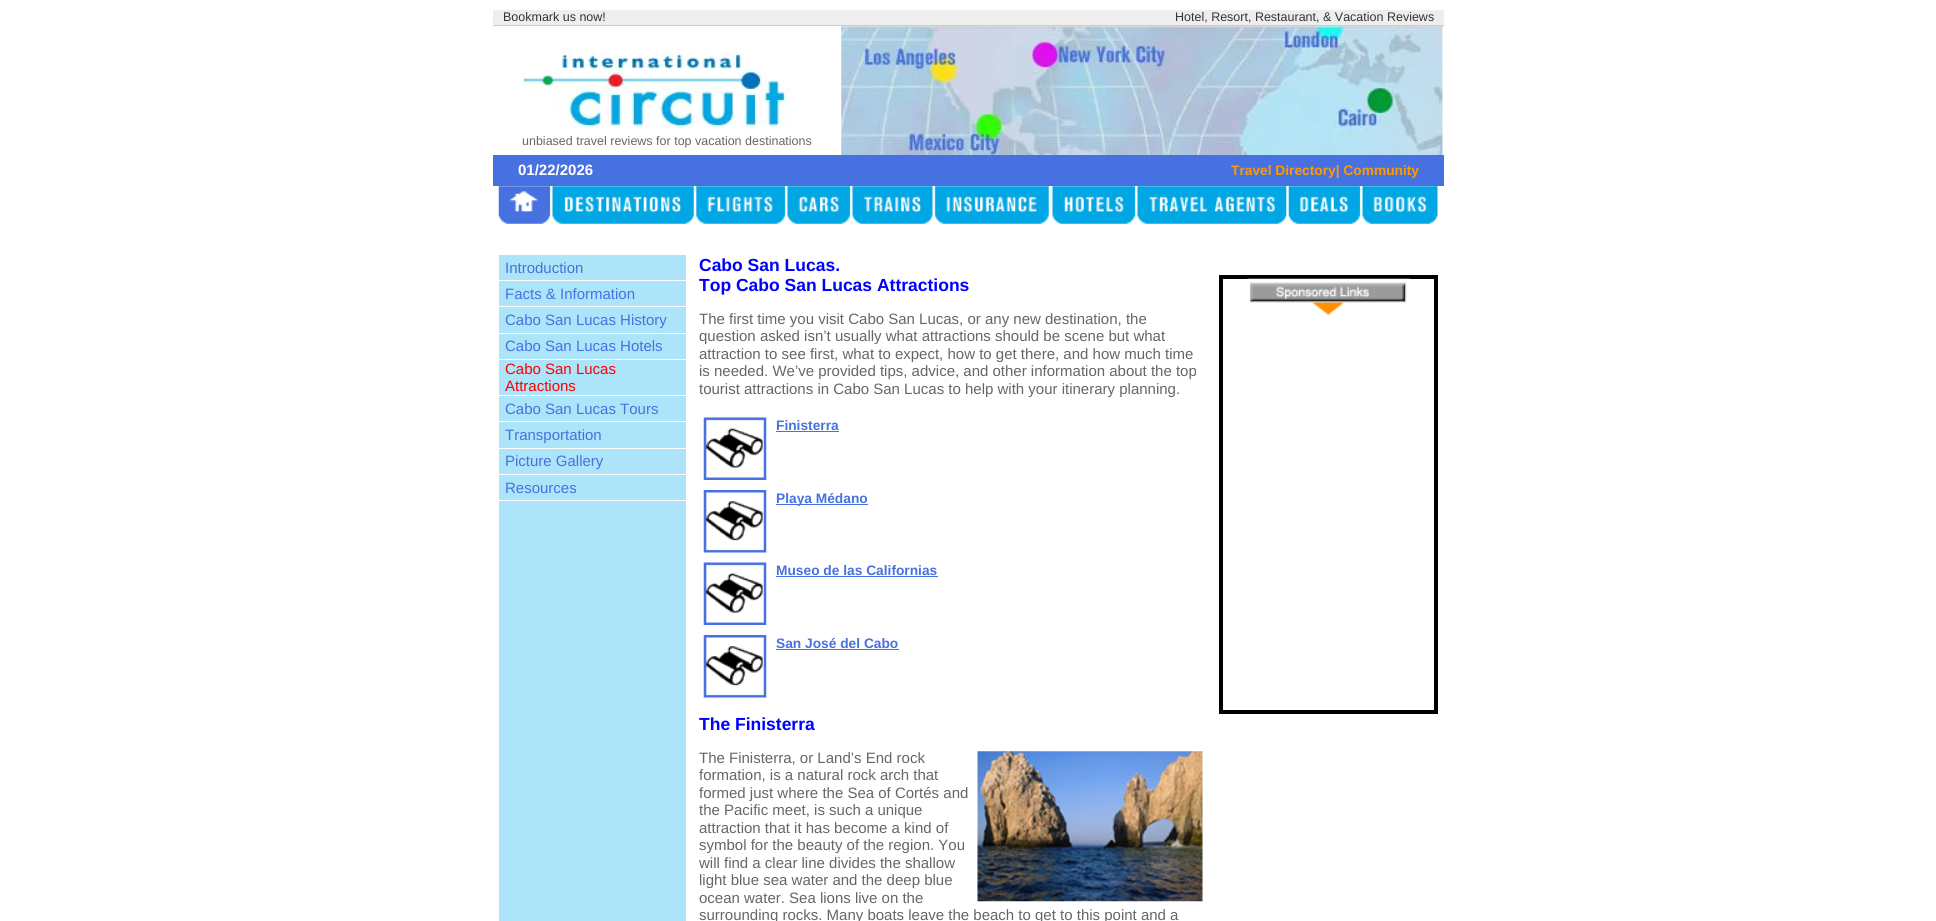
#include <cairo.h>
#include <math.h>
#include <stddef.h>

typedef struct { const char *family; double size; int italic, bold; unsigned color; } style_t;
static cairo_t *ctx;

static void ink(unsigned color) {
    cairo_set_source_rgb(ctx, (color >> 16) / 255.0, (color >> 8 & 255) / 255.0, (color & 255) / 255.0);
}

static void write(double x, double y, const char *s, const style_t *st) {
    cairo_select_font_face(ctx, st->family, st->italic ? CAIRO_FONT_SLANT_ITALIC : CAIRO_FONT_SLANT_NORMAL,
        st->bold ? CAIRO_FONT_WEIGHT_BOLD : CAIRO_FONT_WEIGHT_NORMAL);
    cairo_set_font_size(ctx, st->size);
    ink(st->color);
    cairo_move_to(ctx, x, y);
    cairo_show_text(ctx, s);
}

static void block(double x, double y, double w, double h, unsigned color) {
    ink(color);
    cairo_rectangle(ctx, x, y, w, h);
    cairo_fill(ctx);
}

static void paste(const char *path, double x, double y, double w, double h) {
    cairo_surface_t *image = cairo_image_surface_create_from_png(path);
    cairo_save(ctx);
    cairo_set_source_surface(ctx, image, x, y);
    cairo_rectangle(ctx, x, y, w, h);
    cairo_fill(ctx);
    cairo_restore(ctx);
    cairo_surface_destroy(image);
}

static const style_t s1 = {"Liberation Sans", 12.5, 0, 0, 0x333333};
static const style_t s2 = {"Liberation Sans", 12.5, 0, 0, 0x666666};
static const style_t s3 = {"Liberation Sans", 15, 0, 1, 0xffffff};
static const style_t s4 = {"Liberation Sans", 13.75, 0, 1, 0xff9900};
static const style_t s5 = {"Liberation Sans", 15, 0, 0, 0x4771e1};
static const style_t s6 = {"Liberation Sans", 15, 0, 0, 0xff0000};
static const style_t s7 = {"Liberation Sans", 17.5, 0, 1, 0x0000ff};
static const style_t s8 = {"Liberation Sans", 15, 0, 0, 0x666666};
static const style_t s9 = {"Liberation Sans", 13.75, 0, 1, 0x4771e1};

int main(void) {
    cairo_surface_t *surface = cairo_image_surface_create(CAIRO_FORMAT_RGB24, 1936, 921);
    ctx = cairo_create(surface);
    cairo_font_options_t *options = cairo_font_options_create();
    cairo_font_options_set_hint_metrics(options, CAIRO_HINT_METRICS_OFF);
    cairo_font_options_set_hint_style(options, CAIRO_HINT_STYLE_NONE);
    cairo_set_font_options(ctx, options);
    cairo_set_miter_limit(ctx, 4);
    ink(0xffffff);
    cairo_paint(ctx);
    block(493, 10, 951, 15, 0xeeeeee);
    write(503, 21, "Bookmark us now!", &s1);
    write(1175, 21, "Hotel, Resort, Restaurant, & Vacation Reviews", &s1);
    block(493, 25, 951, 1, 0xcccccc);
    paste("pic1.png", 521, 48, 270, 81);
    write(522, 145, "unbiased travel reviews for top vacation destinations", &s2);
    paste("pic2.png", 841, 26, 602, 129);
    block(493, 155, 951, 31, 0x4771e1);
    write(518, 175, "01/22/2026", &s3);
    write(1231, 175, "Travel Directory| Community", &s4);
    paste("pic3.png", 498, 186, 53, 38);
    paste("pic4.png", 552, 186, 142, 38);
    paste("pic5.png", 696, 186, 90, 38);
    paste("pic6.png", 787, 186, 64, 38);
    paste("pic7.png", 852, 186, 81, 38);
    paste("pic8.png", 934, 186, 115, 38);
    paste("pic9.png", 1052, 186, 84, 38);
    paste("pic10.png", 1137, 186, 150, 38);
    paste("pic11.png", 1288, 186, 73, 38);
    paste("pic12.png", 1362, 186, 76, 38);
    block(499, 255, 187, 666, 0xace4f9);
    write(505, 273, "Introduction", &s5);
    block(499, 280, 187, 1, 0xffffff);
    write(505, 299, "Facts & Information", &s5);
    block(499, 306, 187, 1, 0xffffff);
    write(505, 325, "Cabo San Lucas History", &s5);
    block(499, 333, 187, 1, 0xffffff);
    write(505, 351, "Cabo San Lucas Hotels", &s5);
    block(499, 359, 187, 1, 0xffffff);
    write(505, 374, "Cabo San Lucas", &s6);
    write(505, 391, "Attractions", &s6);
    block(499, 395, 187, 1, 0xffffff);
    write(505, 414, "Cabo San Lucas Tours", &s5);
    block(499, 421, 187, 1, 0xffffff);
    write(505, 440, "Transportation", &s5);
    block(499, 448, 187, 1, 0xffffff);
    write(505, 466, "Picture Gallery", &s5);
    block(499, 474, 187, 1, 0xffffff);
    write(505, 493, "Resources", &s5);
    block(499, 500, 187, 1, 0xffffff);
    write(699, 271, "Cabo San Lucas.", &s7);
    write(699, 291, "Top Cabo San Lucas Attractions", &s7);
    write(699, 324, "The first time you visit Cabo San Lucas, or any new destination, the", &s8);
    write(699, 341, "question asked isn’t usually what attractions should be scene but what", &s8);
    write(699, 359, "attraction to see first, what to expect, how to get there, and how much time", &s8);
    write(699, 376, "is needed. We’ve provided tips, advice, and other information about the top", &s8);
    write(699, 394, "tourist attractions in Cabo San Lucas to help with your itinerary planning.", &s8);
    paste("pic13.png", 703, 417, 64, 63);
    write(776, 430, "Finisterra", &s9);
    block(776, 431, 63, 1, 0x4771e1);
    paste("pic14.png", 703, 490, 64, 63);
    block(776, 504, 92, 1, 0x4771e1);
    write(776, 503, "Playa Médano", &s9);
    paste("pic15.png", 703, 562, 64, 63);
    write(776, 575, "Museo de las Californias", &s9);
    block(776, 576, 162, 1, 0x4771e1);
    paste("pic14.png", 703, 635, 64, 63);
    write(776, 648, "San José del Cabo", &s9);
    block(776, 649, 123, 1, 0x4771e1);
    cairo_rectangle(ctx, 1221, 277, 215, 435);
    ink(0x000000);
    cairo_set_line_width(ctx, 4);
    cairo_stroke(ctx);
    paste("pic16.png", 1247, 278, 163, 38);
    write(699, 730, "The Finisterra", &s7);
    write(699, 763, "The Finisterra, or Land’s End rock", &s8);
    paste("pic17.png", 977, 751, 226, 151);
    write(699, 780, "formation, is a natural rock arch that", &s8);
    write(699, 798, "formed just where the Sea of Cortés and", &s8);
    write(699, 815, "the Pacific meet, is such a unique", &s8);
    write(699, 833, "attraction that it has become a kind of", &s8);
    write(699, 850, "symbol for the beauty of the region. You", &s8);
    write(699, 868, "will find a clear line divides the shallow", &s8);
    write(699, 885, "light blue sea water and the deep blue", &s8);
    write(699, 903, "ocean water. Sea lions live on the", &s8);
    write(699, 920, "surrounding rocks. Many boats leave the beach to get to this point and a", &s8);
    cairo_surface_write_to_png(surface, "screenshot.png");
    cairo_font_options_destroy(options);
    cairo_destroy(ctx);
    cairo_surface_destroy(surface);
    return 0;
}
